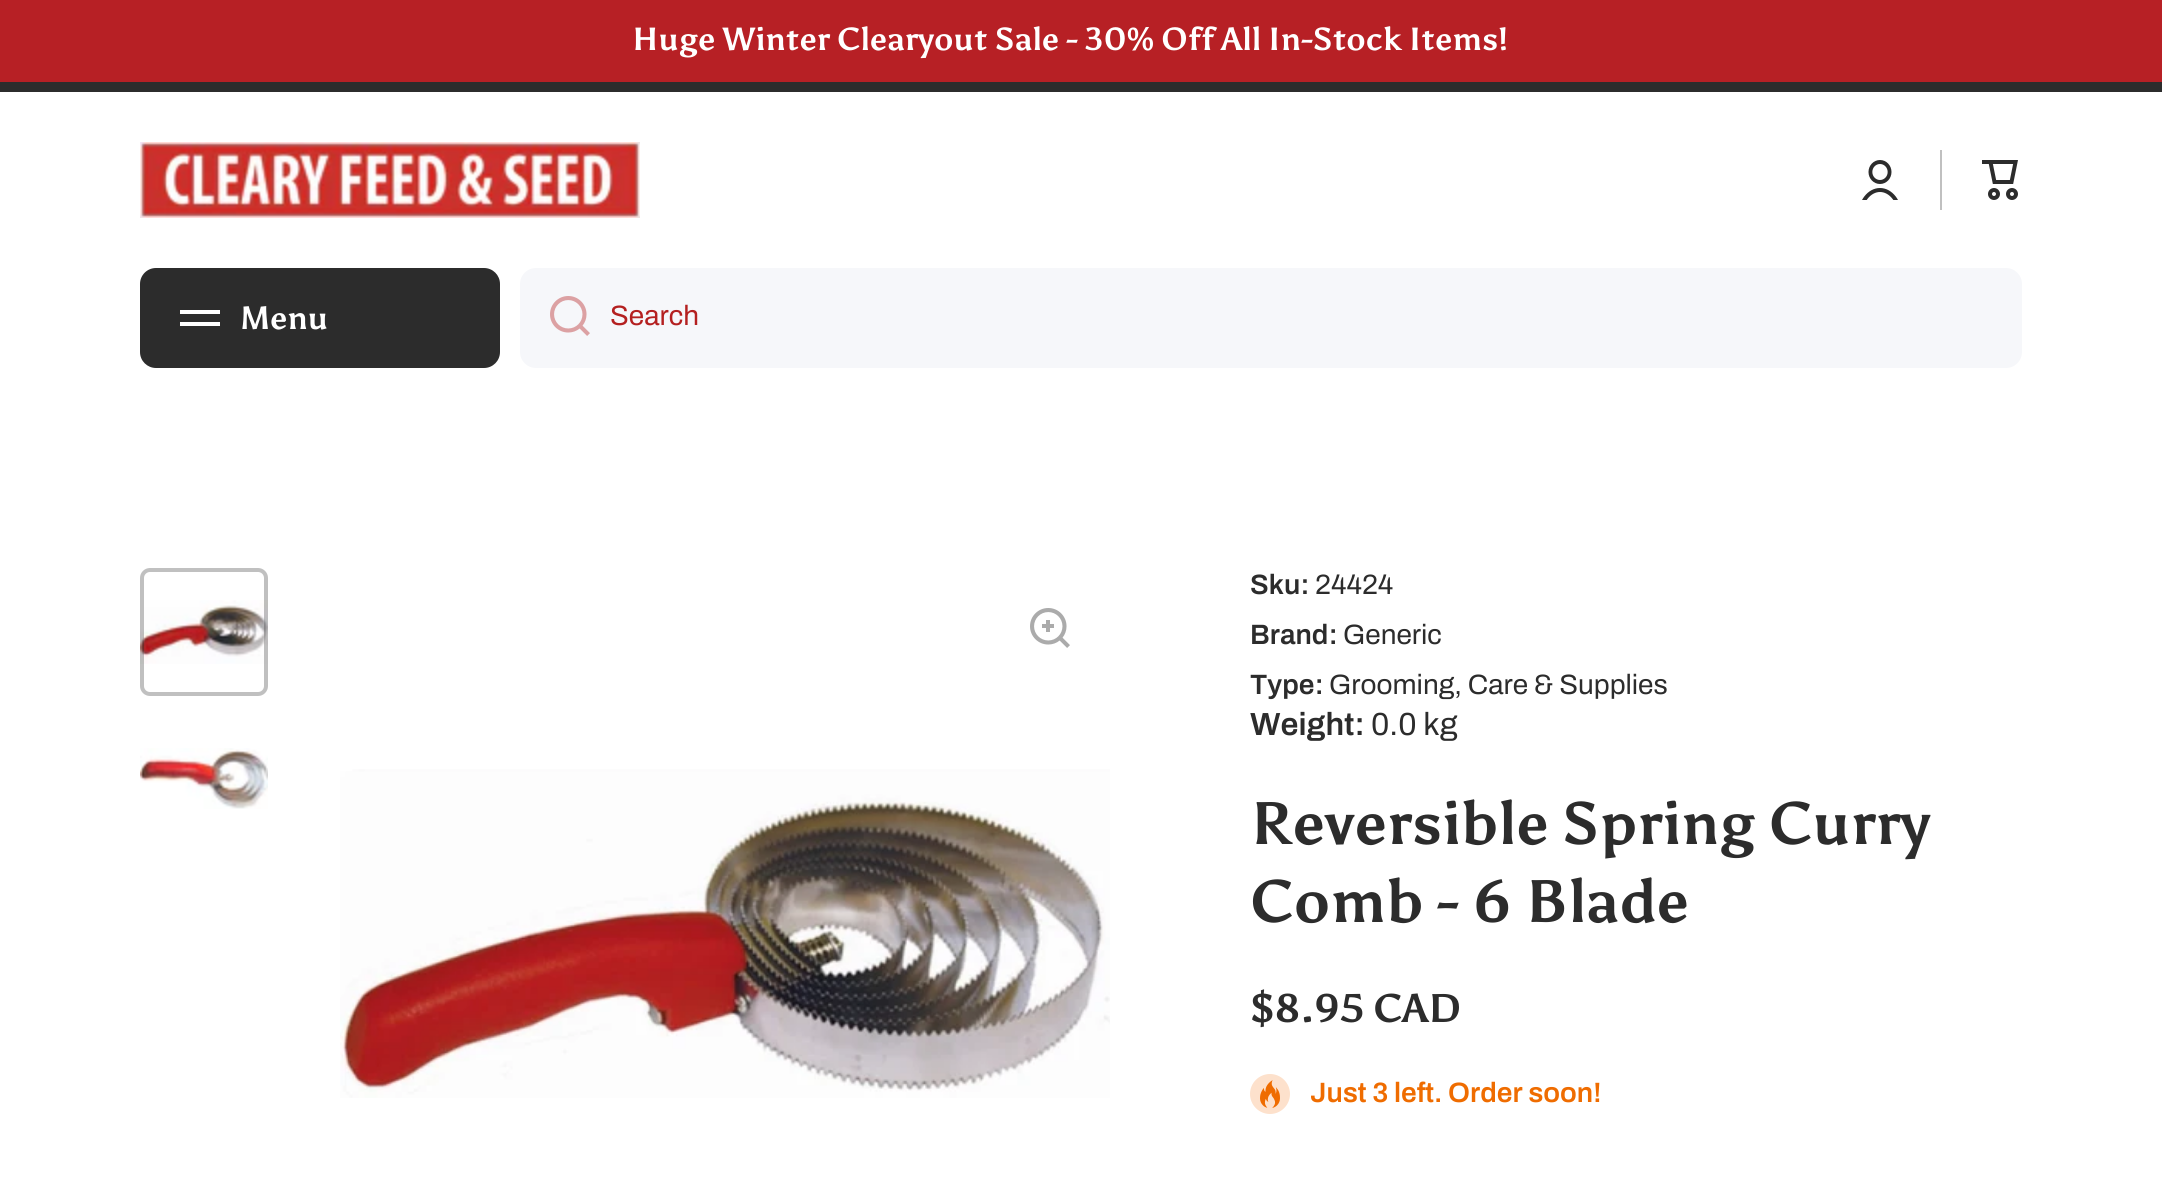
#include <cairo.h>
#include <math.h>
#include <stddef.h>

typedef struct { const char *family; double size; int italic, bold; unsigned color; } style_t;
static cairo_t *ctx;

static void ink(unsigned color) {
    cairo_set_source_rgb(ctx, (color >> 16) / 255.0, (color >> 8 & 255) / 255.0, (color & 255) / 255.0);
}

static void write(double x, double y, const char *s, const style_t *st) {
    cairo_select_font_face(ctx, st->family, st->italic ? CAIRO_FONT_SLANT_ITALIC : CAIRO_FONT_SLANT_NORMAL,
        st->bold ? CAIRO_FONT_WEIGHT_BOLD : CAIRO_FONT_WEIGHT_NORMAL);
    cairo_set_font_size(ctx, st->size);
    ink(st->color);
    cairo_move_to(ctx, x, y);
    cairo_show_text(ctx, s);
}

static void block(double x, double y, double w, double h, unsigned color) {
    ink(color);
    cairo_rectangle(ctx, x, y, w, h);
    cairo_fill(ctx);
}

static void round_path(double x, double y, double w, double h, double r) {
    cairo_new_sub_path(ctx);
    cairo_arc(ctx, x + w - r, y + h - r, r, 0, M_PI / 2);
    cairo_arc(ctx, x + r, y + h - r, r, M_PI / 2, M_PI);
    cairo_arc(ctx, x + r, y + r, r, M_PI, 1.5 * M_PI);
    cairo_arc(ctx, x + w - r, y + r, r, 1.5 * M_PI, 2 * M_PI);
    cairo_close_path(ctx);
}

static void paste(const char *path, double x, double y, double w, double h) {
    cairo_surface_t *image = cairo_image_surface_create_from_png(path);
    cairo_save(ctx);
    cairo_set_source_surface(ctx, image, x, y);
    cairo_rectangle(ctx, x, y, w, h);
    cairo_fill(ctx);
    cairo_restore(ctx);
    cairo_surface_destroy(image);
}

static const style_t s1 = {"Asul", 32, 0, 1, 0xffffff};
static const style_t s2 = {"Archivo", 28, 0, 0, 0xb42020};
static const style_t s3 = {"Archivo SemiBold", 28, 0, 0, 0x2c2c2c};
static const style_t s4 = {"Archivo", 28, 0, 0, 0x2c2c2c};
static const style_t s5 = {"Archivo SemiBold", 32, 0, 0, 0x2c2c2c};
static const style_t s6 = {"Archivo", 32, 0, 0, 0x2c2c2c};
static const style_t s7 = {"Asul", 60, 0, 1, 0x2c2c2c};
static const style_t s8 = {"Asul", 40, 0, 1, 0x2c2c2c};
static const style_t s9 = {"Archivo SemiBold", 28, 0, 0, 0xef6c00};

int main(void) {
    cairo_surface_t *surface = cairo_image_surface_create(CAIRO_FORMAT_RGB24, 2162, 1180);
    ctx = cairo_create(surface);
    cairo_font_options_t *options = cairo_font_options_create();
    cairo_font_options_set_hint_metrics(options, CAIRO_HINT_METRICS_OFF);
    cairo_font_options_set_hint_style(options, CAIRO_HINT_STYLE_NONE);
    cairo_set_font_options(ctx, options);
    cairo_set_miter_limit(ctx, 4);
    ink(0xffffff);
    cairo_paint(ctx);
    block(0, 0, 2162, 82, 0xb72025);
    write(632, 50, "Huge Winter Clearyout Sale - 30% Off All In-Stock Items!", &s1);
    block(0, 82, 2162, 10, 0x2c2c2c);
    paste("pic1.png", 140, 142, 500, 76);
    paste("pic2.png", 1862, 160, 36, 40);
    block(1940, 150, 2, 60, 0xc0c0c0);
    paste("pic3.png", 1982, 160, 36, 40);
    ink(0x2c2c2c);
    round_path(140, 268, 360, 100, 16);
    cairo_fill(ctx);
    block(180, 310, 40, 4, 0xffffff);
    block(180, 322, 40, 4, 0xffffff);
    write(240, 329, "Menu", &s1);
    ink(0xf6f7fa);
    round_path(520, 268, 1502, 100, 16);
    cairo_fill(ctx);
    paste("pic4.png", 550, 296, 40, 40);
    write(610, 325, "Search", &s2);
    paste("pic5.png", 140, 600, 128, 64);
    round_path(142, 570, 124, 124, 8);
    cairo_set_source_rgba(ctx, 0.173, 0.173, 0.173, 0.3);
    cairo_set_line_width(ctx, 4);
    cairo_stroke(ctx);
    paste("pic6.png", 140, 748, 128, 61);
    paste("pic7.png", 1030, 608, 40, 40);
    paste("pic8.png", 340, 769, 770, 329);
    write(1250, 594, "Sku:", &s3);
    write(1315, 594, "24424", &s4);
    write(1250, 644, "Brand:", &s3);
    write(1343, 644, "Generic", &s4);
    write(1250, 694, "Type:", &s3);
    write(1329, 694, "Grooming, Care & Supplies", &s4);
    write(1250, 735, "Weight:", &s5);
    write(1371, 735, "0.0 kg", &s6);
    write(1250, 844, "Reversible Spring Curry", &s7);
    write(1250, 922, "Comb - 6 Blade", &s7);
    write(1250, 1022, "$8.95 CAD", &s8);
    paste("pic9.png", 1250, 1074, 40, 40);
    write(1310, 1102, "Just 3 left. Order soon!", &s9);
    cairo_surface_write_to_png(surface, "screenshot.png");
    cairo_font_options_destroy(options);
    cairo_destroy(ctx);
    cairo_surface_destroy(surface);
    return 0;
}
